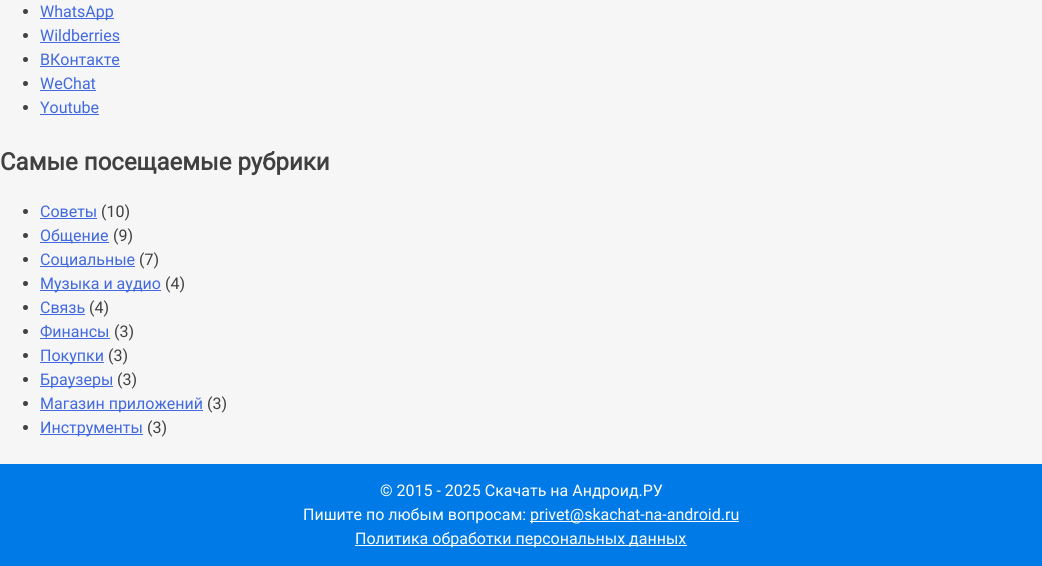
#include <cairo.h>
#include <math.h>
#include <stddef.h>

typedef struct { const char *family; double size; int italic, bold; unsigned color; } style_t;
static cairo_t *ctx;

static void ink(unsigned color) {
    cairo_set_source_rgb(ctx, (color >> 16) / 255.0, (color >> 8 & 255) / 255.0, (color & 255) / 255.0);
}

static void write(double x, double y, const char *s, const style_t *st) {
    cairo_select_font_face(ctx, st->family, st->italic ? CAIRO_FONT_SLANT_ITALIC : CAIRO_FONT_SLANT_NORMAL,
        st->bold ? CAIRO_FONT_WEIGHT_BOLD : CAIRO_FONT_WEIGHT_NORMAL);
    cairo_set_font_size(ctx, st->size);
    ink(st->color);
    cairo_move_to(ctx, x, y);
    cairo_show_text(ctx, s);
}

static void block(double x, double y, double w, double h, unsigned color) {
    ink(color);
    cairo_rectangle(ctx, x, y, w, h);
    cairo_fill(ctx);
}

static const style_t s1 = {"Roboto", 16, 0, 0, 0x4169e1};
static const style_t s2 = {"Roboto", 24, 0, 1, 0x404040};
static const style_t s3 = {"Roboto", 16, 0, 0, 0x404040};
static const style_t s4 = {"Roboto", 16, 0, 0, 0xffffff};

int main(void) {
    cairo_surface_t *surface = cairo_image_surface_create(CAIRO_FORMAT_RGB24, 1042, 566);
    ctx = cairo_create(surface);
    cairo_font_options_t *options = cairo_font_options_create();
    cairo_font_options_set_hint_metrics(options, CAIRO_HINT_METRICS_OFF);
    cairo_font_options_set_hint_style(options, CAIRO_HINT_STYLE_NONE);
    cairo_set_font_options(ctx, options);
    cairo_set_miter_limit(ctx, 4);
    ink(0xf6f6f6);
    cairo_paint(ctx);
    ink(0x404040);
    cairo_arc(ctx, 25.5, 11.5, 2.5, 0, 2 * M_PI);
    cairo_fill(ctx);
    block(40, 18, 74, 1, 0x4169e1);
    write(40, 17, "WhatsApp", &s1);
    ink(0x404040);
    cairo_new_path(ctx);
    cairo_arc(ctx, 25.5, 35.5, 2.5, 0, 2 * M_PI);
    cairo_fill(ctx);
    write(40, 41, "Wildberries", &s1);
    block(40, 42, 80, 1, 0x4169e1);
    ink(0x404040);
    cairo_new_path(ctx);
    cairo_arc(ctx, 25.5, 59.5, 2.5, 0, 2 * M_PI);
    cairo_fill(ctx);
    write(40, 65, "ВКонтакте", &s1);
    block(40, 66, 80, 1, 0x4169e1);
    ink(0x404040);
    cairo_new_path(ctx);
    cairo_arc(ctx, 25.5, 83.5, 2.5, 0, 2 * M_PI);
    cairo_fill(ctx);
    write(40, 89, "WeChat", &s1);
    block(40, 90, 56, 1, 0x4169e1);
    ink(0x404040);
    cairo_new_path(ctx);
    cairo_arc(ctx, 25.5, 107.5, 2.5, 0, 2 * M_PI);
    cairo_fill(ctx);
    write(40, 113, "Youtube", &s1);
    block(40, 114, 59, 1, 0x4169e1);
    write(0, 170, "Самые посещаемые рубрики", &s2);
    cairo_new_path(ctx);
    cairo_arc(ctx, 25.5, 211.5, 2.5, 0, 2 * M_PI);
    cairo_fill(ctx);
    write(40, 217, "Советы", &s1);
    block(40, 218, 57, 1, 0x4169e1);
    write(101, 217, "(10)", &s3);
    cairo_new_path(ctx);
    cairo_arc(ctx, 25.5, 235.5, 2.5, 0, 2 * M_PI);
    cairo_fill(ctx);
    block(40, 242, 69, 1, 0x4169e1);
    write(40, 241, "Общение", &s1);
    write(113, 241, "(9)", &s3);
    cairo_new_path(ctx);
    cairo_arc(ctx, 25.5, 259.5, 2.5, 0, 2 * M_PI);
    cairo_fill(ctx);
    block(40, 266, 95, 1, 0x4169e1);
    write(40, 265, "Социальные", &s1);
    write(139, 265, "(7)", &s3);
    cairo_new_path(ctx);
    cairo_arc(ctx, 25.5, 283.5, 2.5, 0, 2 * M_PI);
    cairo_fill(ctx);
    block(40, 290, 121, 1, 0x4169e1);
    write(40, 289, "Музыка и аудио", &s1);
    write(165, 289, "(4)", &s3);
    cairo_new_path(ctx);
    cairo_arc(ctx, 25.5, 307.5, 2.5, 0, 2 * M_PI);
    cairo_fill(ctx);
    write(40, 313, "Связь", &s1);
    block(40, 314, 45, 1, 0x4169e1);
    write(89, 313, "(4)", &s3);
    cairo_new_path(ctx);
    cairo_arc(ctx, 25.5, 331.5, 2.5, 0, 2 * M_PI);
    cairo_fill(ctx);
    write(40, 337, "Финансы", &s1);
    block(40, 338, 70, 1, 0x4169e1);
    write(114, 337, "(3)", &s3);
    cairo_new_path(ctx);
    cairo_arc(ctx, 25.5, 355.5, 2.5, 0, 2 * M_PI);
    cairo_fill(ctx);
    block(40, 362, 64, 1, 0x4169e1);
    write(40, 361, "Покупки", &s1);
    write(108, 361, "(3)", &s3);
    cairo_new_path(ctx);
    cairo_arc(ctx, 25.5, 379.5, 2.5, 0, 2 * M_PI);
    cairo_fill(ctx);
    block(40, 386, 73, 1, 0x4169e1);
    write(40, 385, "Браузеры", &s1);
    write(117, 385, "(3)", &s3);
    cairo_new_path(ctx);
    cairo_arc(ctx, 25.5, 403.5, 2.5, 0, 2 * M_PI);
    cairo_fill(ctx);
    block(40, 410, 163, 1, 0x4169e1);
    write(40, 409, "Магазин приложений", &s1);
    write(207, 409, "(3)", &s3);
    cairo_new_path(ctx);
    cairo_arc(ctx, 25.5, 427.5, 2.5, 0, 2 * M_PI);
    cairo_fill(ctx);
    block(40, 434, 103, 1, 0x4169e1);
    write(40, 433, "Инструменты", &s1);
    write(147, 433, "(3)", &s3);
    block(0, 464, 1042, 102, 0x007ae6);
    write(380, 496, "© 2015 - 2025 Скачать на Андроид.РУ", &s4);
    write(303, 520, "Пишите по любым вопросам:", &s4);
    block(530, 521, 209, 1, 0xffffff);
    write(530, 520, "privet@skachat-na-android.ru", &s4);
    block(355, 545, 332, 1, 0xffffff);
    write(355, 544, "Политика обработки персональных данных", &s4);
    cairo_surface_write_to_png(surface, "screenshot.png");
    cairo_font_options_destroy(options);
    cairo_destroy(ctx);
    cairo_surface_destroy(surface);
    return 0;
}
